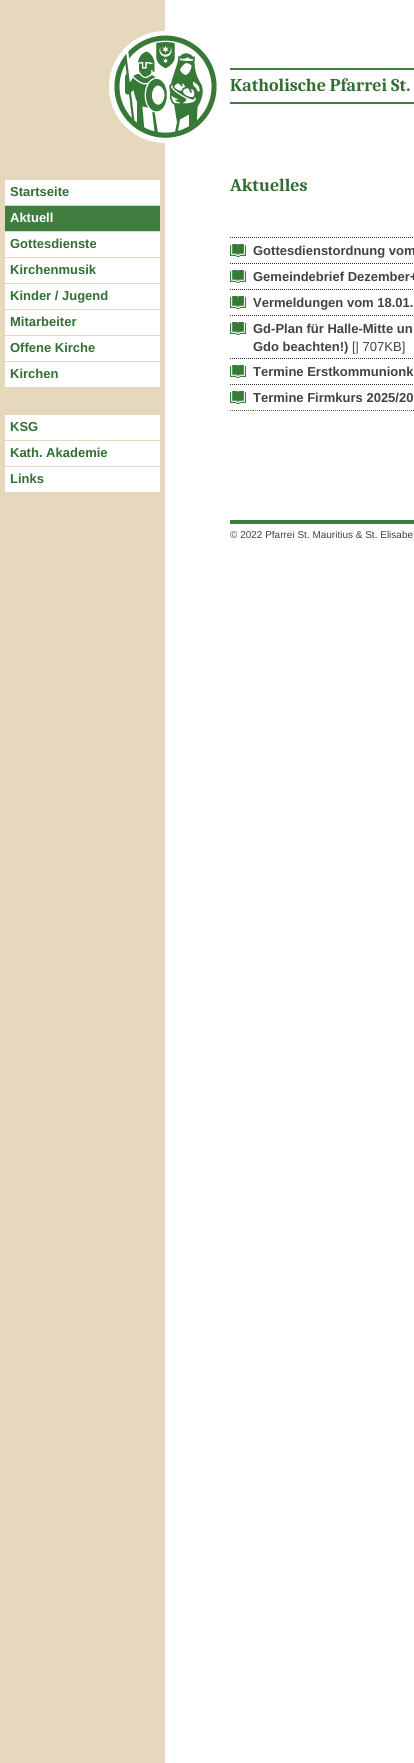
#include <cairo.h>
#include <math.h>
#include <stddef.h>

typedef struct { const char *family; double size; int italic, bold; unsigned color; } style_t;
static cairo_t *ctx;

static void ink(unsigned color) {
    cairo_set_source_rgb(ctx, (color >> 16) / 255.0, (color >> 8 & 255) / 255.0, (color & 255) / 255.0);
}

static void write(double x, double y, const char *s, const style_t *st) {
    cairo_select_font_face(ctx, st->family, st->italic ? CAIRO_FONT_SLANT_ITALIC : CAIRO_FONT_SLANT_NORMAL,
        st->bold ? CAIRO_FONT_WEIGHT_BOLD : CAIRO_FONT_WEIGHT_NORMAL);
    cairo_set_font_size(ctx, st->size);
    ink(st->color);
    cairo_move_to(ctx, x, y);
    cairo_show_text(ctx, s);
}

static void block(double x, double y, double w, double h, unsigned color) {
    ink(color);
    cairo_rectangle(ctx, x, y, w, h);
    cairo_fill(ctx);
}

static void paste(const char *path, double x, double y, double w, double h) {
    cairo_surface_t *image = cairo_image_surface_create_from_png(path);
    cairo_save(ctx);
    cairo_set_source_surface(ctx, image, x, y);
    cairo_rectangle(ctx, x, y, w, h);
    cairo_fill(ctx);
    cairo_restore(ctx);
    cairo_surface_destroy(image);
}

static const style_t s1 = {"Caladea", 18, 0, 1, 0x326e32};
static const style_t s2 = {"Liberation Sans", 13, 0, 1, 0x326e32};
static const style_t s3 = {"Liberation Sans", 13, 0, 1, 0xffffff};
static const style_t s4 = {"Liberation Sans", 13, 0, 1, 0x424242};
static const style_t s5 = {"Liberation Sans", 13, 0, 0, 0x424242};
static const style_t s6 = {"Liberation Sans", 10, 0, 0, 0x424242};

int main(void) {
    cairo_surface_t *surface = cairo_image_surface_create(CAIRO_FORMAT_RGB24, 414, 1763);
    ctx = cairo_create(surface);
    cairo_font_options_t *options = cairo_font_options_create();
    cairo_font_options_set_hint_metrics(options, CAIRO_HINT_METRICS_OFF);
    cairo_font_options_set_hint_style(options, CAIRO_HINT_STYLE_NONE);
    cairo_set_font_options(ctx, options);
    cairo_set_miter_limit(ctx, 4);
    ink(0xffffff);
    cairo_paint(ctx);
    block(0, 0, 165, 1763, 0xe6d8bc);
    paste("pic1.png", 109, 31, 108, 112);
    block(230, 68, 184, 2, 0x3f7e3f);
    block(230, 102, 184, 2, 0x3f7e3f);
    write(230, 91, "Katholische Pfarrei St.", &s1);
    block(5, 180, 155, 25, 0xffffff);
    write(10, 196, "Startseite", &s2);
    block(5, 206, 155, 25, 0x3f7e3f);
    write(10, 222, "Aktuell", &s3);
    block(5, 232, 155, 25, 0xffffff);
    write(10, 248, "Gottesdienste", &s2);
    block(5, 258, 155, 25, 0xffffff);
    write(10, 274, "Kirchenmusik", &s2);
    block(5, 284, 155, 25, 0xffffff);
    write(10, 300, "Kinder / Jugend", &s2);
    block(5, 310, 155, 25, 0xffffff);
    write(10, 326, "Mitarbeiter", &s2);
    block(5, 336, 155, 25, 0xffffff);
    write(10, 352, "Offene Kirche", &s2);
    block(5, 362, 155, 25, 0xffffff);
    write(10, 378, "Kirchen", &s2);
    block(5, 415, 155, 25, 0xffffff);
    write(10, 431, "KSG", &s2);
    block(5, 441, 155, 25, 0xffffff);
    write(10, 457, "Kath. Akademie", &s2);
    block(5, 467, 155, 25, 0xffffff);
    write(10, 483, "Links", &s2);
    write(230, 191, "Aktuelles", &s1);
    cairo_new_path(ctx);
    cairo_move_to(ctx, 230, 237.5);
    cairo_line_to(ctx, 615, 237.5);
    ink(0x333333);
    cairo_set_line_width(ctx, 1);
    cairo_set_dash(ctx, (double[]){1, 1}, 2, 0);
    cairo_stroke(ctx);
    paste("pic2.png", 230, 244, 16, 13);
    write(253, 255, "Gottesdienstordnung vom", &s4);
    cairo_new_path(ctx);
    cairo_move_to(ctx, 230, 263.5);
    cairo_line_to(ctx, 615, 263.5);
    ink(0x333333);
    cairo_stroke(ctx);
    paste("pic2.png", 230, 270, 16, 13);
    write(253, 281, "Gemeindebrief Dezember+", &s4);
    cairo_new_path(ctx);
    cairo_move_to(ctx, 230, 289.5);
    cairo_line_to(ctx, 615, 289.5);
    ink(0x333333);
    cairo_stroke(ctx);
    paste("pic2.png", 230, 296, 16, 13);
    write(253, 307, "Vermeldungen vom 18.01.", &s4);
    cairo_new_path(ctx);
    cairo_move_to(ctx, 230, 315.5);
    cairo_line_to(ctx, 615, 315.5);
    ink(0x333333);
    cairo_stroke(ctx);
    paste("pic2.png", 230, 322, 16, 13);
    write(253, 333, "Gd-Plan für Halle-Mitte un", &s4);
    write(253, 351, "Gdo beachten!)", &s4);
    write(352, 351, "[| 707KB]", &s5);
    cairo_new_path(ctx);
    cairo_move_to(ctx, 230, 358.5);
    cairo_line_to(ctx, 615, 358.5);
    ink(0x333333);
    cairo_stroke(ctx);
    paste("pic2.png", 230, 365, 16, 13);
    write(253, 376, "Termine Erstkommunionk", &s4);
    cairo_new_path(ctx);
    cairo_move_to(ctx, 230, 384.5);
    cairo_line_to(ctx, 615, 384.5);
    ink(0x333333);
    cairo_stroke(ctx);
    cairo_new_path(ctx);
    cairo_move_to(ctx, 230, 410.5);
    cairo_line_to(ctx, 253, 410.5);
    ink(0x3f7e3f);
    cairo_stroke(ctx);
    paste("pic2.png", 230, 391, 16, 13);
    cairo_new_path(ctx);
    cairo_move_to(ctx, 253, 410.5);
    cairo_line_to(ctx, 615, 410.5);
    cairo_stroke(ctx);
    write(253, 402, "Termine Firmkurs 2025/20", &s4);
    block(230, 520, 184, 4, 0x3f7e3f);
    write(230, 538, "© 2022 Pfarrei St. Mauritius & St. Elisabe", &s6);
    cairo_surface_write_to_png(surface, "screenshot.png");
    cairo_font_options_destroy(options);
    cairo_destroy(ctx);
    cairo_surface_destroy(surface);
    return 0;
}
